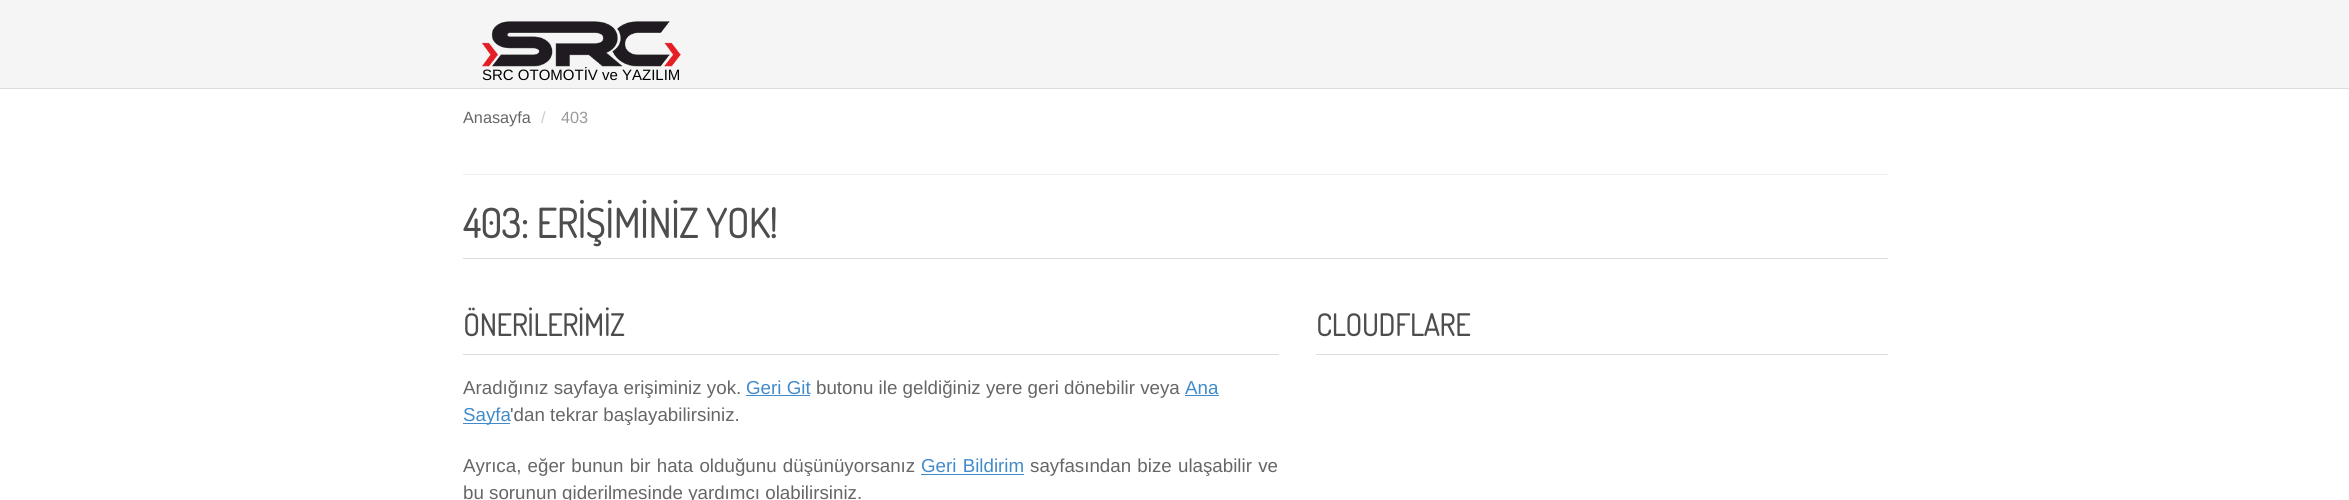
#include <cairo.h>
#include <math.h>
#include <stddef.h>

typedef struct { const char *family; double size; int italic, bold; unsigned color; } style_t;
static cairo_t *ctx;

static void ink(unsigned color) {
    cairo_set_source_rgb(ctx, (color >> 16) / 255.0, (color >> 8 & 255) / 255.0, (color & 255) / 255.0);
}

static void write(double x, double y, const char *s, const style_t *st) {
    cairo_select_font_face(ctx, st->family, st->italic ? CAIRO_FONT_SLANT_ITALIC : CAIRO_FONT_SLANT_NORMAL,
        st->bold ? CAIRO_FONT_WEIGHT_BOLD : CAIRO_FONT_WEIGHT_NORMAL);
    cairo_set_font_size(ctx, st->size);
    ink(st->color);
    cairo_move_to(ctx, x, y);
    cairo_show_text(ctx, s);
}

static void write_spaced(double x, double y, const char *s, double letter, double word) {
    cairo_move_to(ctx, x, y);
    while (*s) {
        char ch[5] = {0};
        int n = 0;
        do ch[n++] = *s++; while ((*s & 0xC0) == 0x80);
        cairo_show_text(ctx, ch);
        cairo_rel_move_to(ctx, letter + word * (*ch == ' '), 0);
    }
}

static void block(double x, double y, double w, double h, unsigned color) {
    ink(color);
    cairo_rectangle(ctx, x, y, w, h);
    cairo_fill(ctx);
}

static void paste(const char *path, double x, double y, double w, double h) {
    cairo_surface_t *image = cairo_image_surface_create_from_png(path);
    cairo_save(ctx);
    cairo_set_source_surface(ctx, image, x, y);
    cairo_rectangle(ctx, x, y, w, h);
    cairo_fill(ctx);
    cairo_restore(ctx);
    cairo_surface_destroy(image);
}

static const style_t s1 = {"Liberation Sans", 15, 0, 0, 0x000000};
static const style_t s2 = {"Liberation Sans", 16.25, 0, 0, 0x666666};
static const style_t s3 = {"Liberation Sans", 16.25, 0, 0, 0xcccccc};
static const style_t s4 = {"Liberation Sans", 16.25, 0, 0, 0x999999};
static const style_t s5 = {"Dosis", 40, 0, 1, 0x4d4d4d};
static const style_t s6 = {"Dosis", 30, 0, 1, 0x4d4d4d};
static const style_t s7 = {"Liberation Sans", 18.75, 0, 0, 0x666666};
static const style_t s8 = {"Liberation Sans", 18.75, 0, 0, 0x428bca};

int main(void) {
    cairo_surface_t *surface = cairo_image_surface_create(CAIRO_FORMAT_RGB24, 2349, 500);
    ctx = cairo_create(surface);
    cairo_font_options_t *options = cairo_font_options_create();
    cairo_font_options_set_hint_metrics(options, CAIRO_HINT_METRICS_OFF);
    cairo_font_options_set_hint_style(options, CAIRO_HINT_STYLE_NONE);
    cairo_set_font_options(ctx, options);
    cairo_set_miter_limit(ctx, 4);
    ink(0xffffff);
    cairo_paint(ctx);
    block(0, 0, 2349, 88, 0xf5f5f5);
    block(0, 88, 2349, 1, 0xdcdcdc);
    paste("pic1.png", 482, 21, 199, 46);
    write(482, 80, "SRC OTOMOTİV ve YAZILIM", &s1);
    write(463, 123, "Anasayfa", &s2);
    write(541, 123, "/", &s3);
    write(561, 123, "403", &s4);
    block(463, 174, 1425, 1, 0xeeeeee);
    block(463, 258, 1425, 1, 0xdddddd);
    write(463, 238, "403: ERİŞİMİNİZ YOK!", &s5);
    block(463, 354, 816, 1, 0xdddddd);
    write(463, 336, "ÖNERİLERİMİZ", &s6);
    write(463, 394, "Aradığınız sayfaya erişiminiz yok.", &s7);
    write(746, 394, "Geri Git", &s8);
    block(746, 395, 64, 1, 0x428bca);
    write(816, 394, "butonu ile geldiğiniz yere geri dönebilir veya", &s7);
    write(1185, 394, "Ana", &s8);
    block(1185, 395, 34, 1, 0x428bca);
    block(463, 423, 47, 1, 0x428bca);
    write(463, 421, "Sayfa", &s8);
    write(510, 421, "'dan tekrar başlayabilirsiniz.", &s7);
    write_spaced(463, 472, "Ayrıca, eğer bunun bir hata olduğunu düşünüyorsanız", 0, 1);
    ink(0x428bca);
    write_spaced(921, 472, "Geri Bildirim", 0, 1);
    block(921, 474, 103, 1, 0x428bca);
    ink(0x666666);
    write_spaced(1030, 472, "sayfasından bize ulaşabilir ve", 0, 1);
    write(463, 499, "bu sorunun giderilmesinde yardımcı olabilirsiniz.", &s7);
    block(1316, 354, 572, 1, 0xdddddd);
    write(1316, 336, "CLOUDFLARE", &s6);
    cairo_surface_write_to_png(surface, "screenshot.png");
    cairo_font_options_destroy(options);
    cairo_destroy(ctx);
    cairo_surface_destroy(surface);
    return 0;
}
